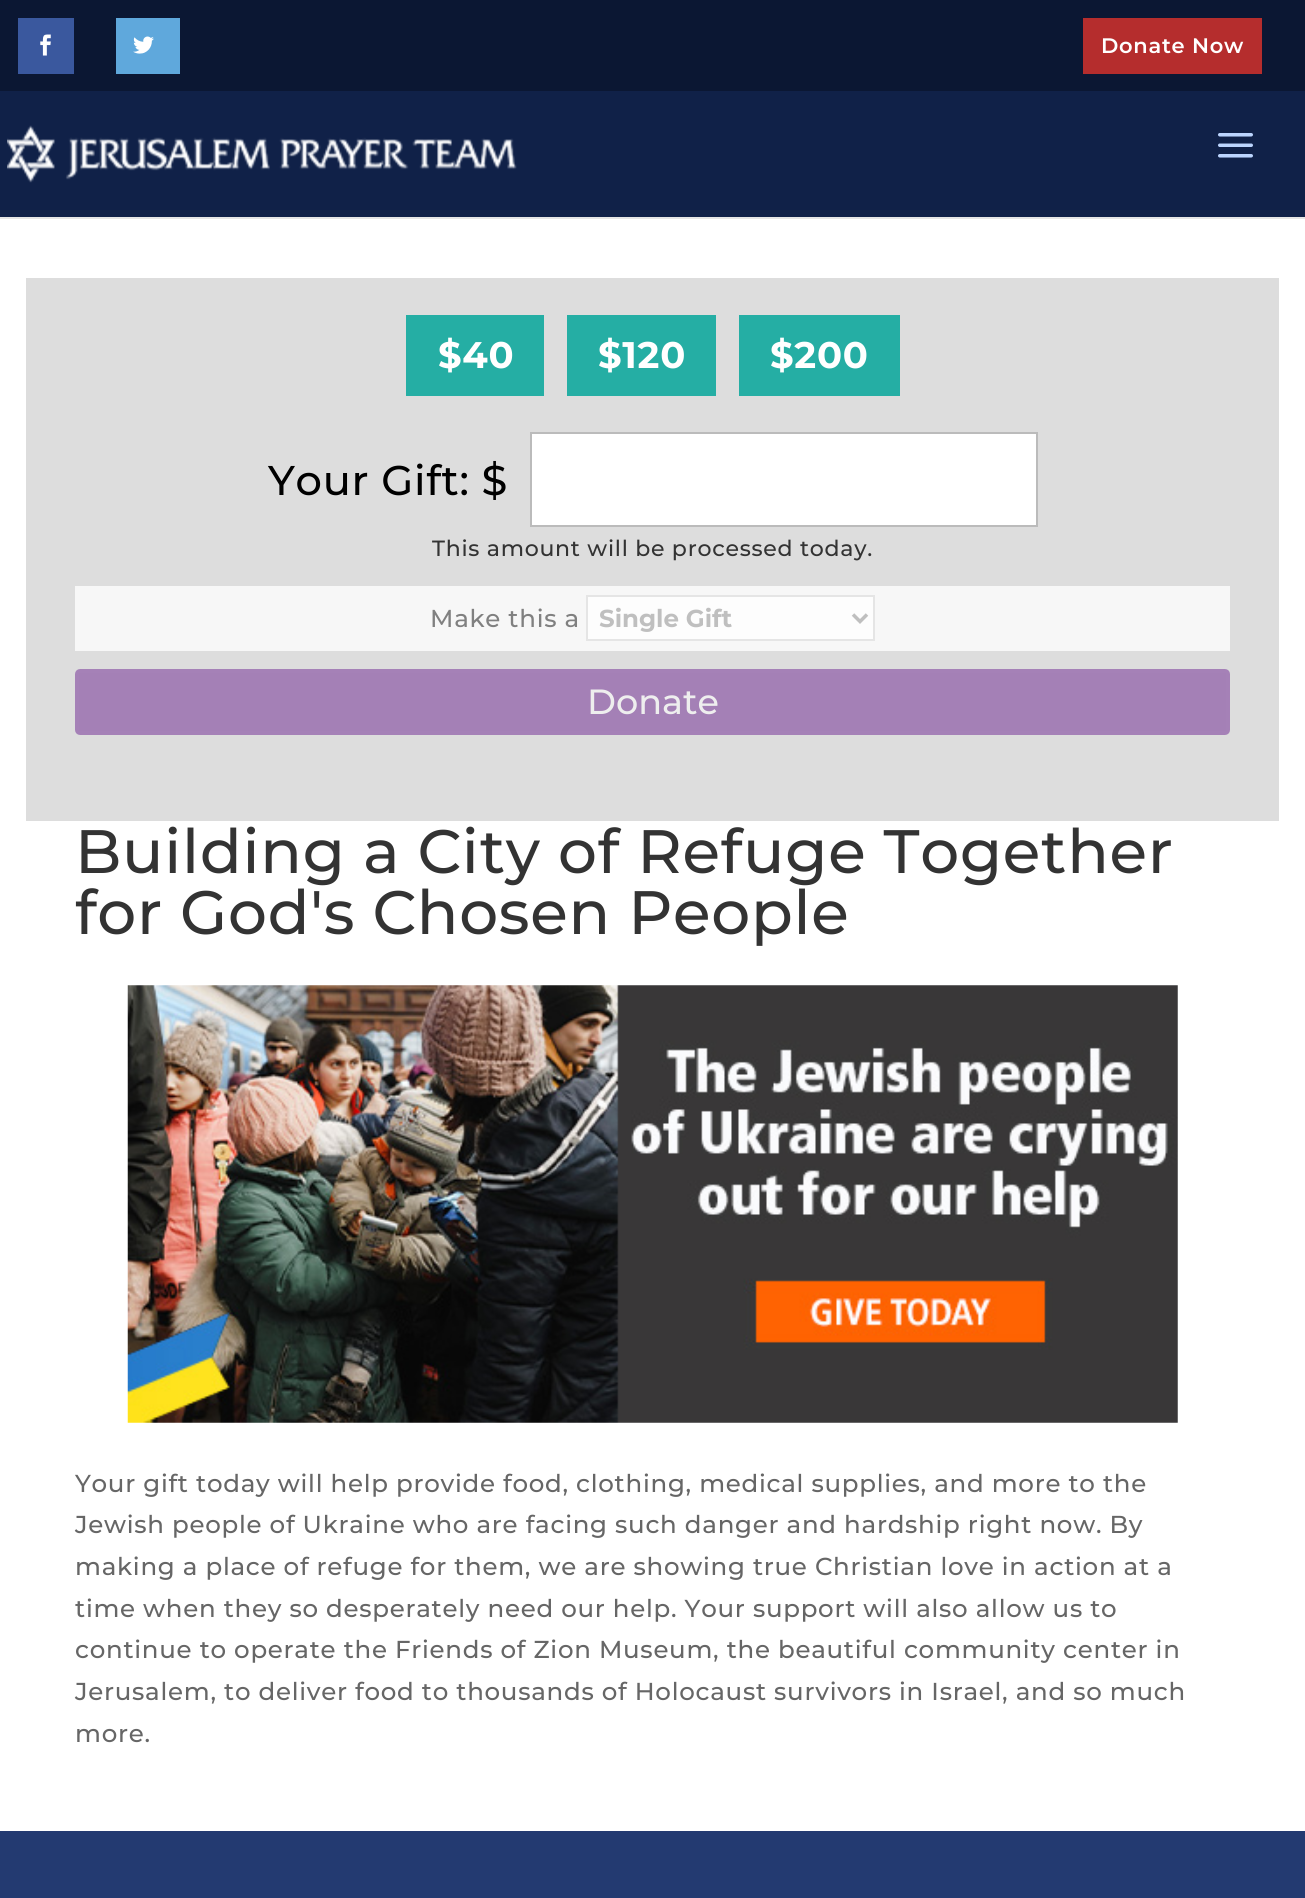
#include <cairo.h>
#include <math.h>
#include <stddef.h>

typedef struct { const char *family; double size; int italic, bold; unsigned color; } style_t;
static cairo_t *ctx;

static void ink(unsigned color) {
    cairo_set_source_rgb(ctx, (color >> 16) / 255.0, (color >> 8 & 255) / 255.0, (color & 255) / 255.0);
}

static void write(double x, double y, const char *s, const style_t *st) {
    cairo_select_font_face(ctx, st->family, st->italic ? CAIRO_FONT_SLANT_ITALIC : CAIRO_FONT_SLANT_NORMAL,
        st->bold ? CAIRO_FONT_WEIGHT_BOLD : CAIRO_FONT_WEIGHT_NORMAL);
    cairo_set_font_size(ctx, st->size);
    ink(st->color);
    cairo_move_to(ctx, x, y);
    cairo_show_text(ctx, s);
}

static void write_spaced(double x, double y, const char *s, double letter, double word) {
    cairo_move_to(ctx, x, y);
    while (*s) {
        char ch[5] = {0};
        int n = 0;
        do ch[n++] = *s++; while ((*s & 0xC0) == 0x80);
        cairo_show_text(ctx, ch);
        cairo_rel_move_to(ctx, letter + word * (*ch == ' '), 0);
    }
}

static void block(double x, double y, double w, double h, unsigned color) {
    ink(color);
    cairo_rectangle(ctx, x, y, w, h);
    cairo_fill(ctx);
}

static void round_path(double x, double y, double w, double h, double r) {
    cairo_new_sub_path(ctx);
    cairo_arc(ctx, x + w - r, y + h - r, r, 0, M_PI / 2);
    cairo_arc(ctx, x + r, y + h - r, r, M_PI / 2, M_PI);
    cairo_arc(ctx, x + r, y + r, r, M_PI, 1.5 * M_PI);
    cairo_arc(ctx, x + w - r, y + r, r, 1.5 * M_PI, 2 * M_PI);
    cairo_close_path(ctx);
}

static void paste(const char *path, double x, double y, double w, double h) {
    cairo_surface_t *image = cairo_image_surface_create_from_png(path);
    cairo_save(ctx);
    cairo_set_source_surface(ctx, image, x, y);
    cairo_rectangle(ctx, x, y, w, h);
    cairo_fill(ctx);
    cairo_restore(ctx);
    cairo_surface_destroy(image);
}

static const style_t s1 = {"Montserrat", 24.5, 0, 1, 0xbfbfbf};
static const style_t s2 = {"Montserrat Medium", 35, 0, 0, 0xeeeeee};

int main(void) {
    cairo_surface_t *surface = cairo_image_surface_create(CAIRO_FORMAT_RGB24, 1305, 1898);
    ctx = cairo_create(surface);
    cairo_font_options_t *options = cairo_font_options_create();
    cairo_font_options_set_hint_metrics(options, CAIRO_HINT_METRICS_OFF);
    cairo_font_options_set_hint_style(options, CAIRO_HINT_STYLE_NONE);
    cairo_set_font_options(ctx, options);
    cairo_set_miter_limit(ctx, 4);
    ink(0x0b1733);
    cairo_paint(ctx);
    block(18, 18, 56, 56, 0x3a589e);
    paste("pic1.png", 40, 34, 11, 22);
    block(116, 18, 64, 56, 0x5fa8dc);
    paste("pic2.png", 133, 36, 21, 18);
    block(1083, 18, 179, 56, 0xb52d2d);
    cairo_select_font_face(ctx, "Montserrat SemiBold", CAIRO_FONT_SLANT_NORMAL, CAIRO_FONT_WEIGHT_NORMAL);
    cairo_set_font_size(ctx, 21);
    ink(0xffffff);
    write_spaced(1101, 53, "Donate Now", 0.73, 0);
    ink(0xe6e6e6);
    cairo_new_path(ctx);
    cairo_move_to(ctx, 0, 217);
    cairo_line_to(ctx, 0, 219);
    cairo_line_to(ctx, 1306, 219);
    cairo_line_to(ctx, 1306, 93);
    cairo_line_to(ctx, 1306, 217);
    cairo_close_path(ctx);
    cairo_fill(ctx);
    block(0, 91, 1305, 126, 0x102148);
    paste("pic3.png", 7, 125, 510, 58);
    paste("pic4.png", 1218, 133, 35, 25);
    block(0, 219, 1305, 1612, 0xffffff);
    block(26, 278, 1253, 543, 0xdddddd);
    block(406, 315, 138, 81, 0x25aea4);
    cairo_select_font_face(ctx, "Montserrat", CAIRO_FONT_SLANT_NORMAL, CAIRO_FONT_WEIGHT_BOLD);
    cairo_set_font_size(ctx, 37);
    ink(0xffffff);
    write_spaced(438, 368, "$40", 0.73, 0);
    block(567, 315, 149, 81, 0x25aea4);
    ink(0xffffff);
    write_spaced(598, 368, "$120", 0.73, 0);
    block(739, 315, 161, 81, 0x25aea4);
    ink(0xffffff);
    write_spaced(770, 368, "$200", 0.73, 0);
    cairo_select_font_face(ctx, "Montserrat Medium", CAIRO_FONT_SLANT_NORMAL, CAIRO_FONT_WEIGHT_NORMAL);
    cairo_set_font_size(ctx, 41.5);
    ink(0x000000);
    write_spaced(268, 495, "Your Gift: $", 0.73, 0);
    ink(0xffffff);
    cairo_rectangle(ctx, 531, 433, 506, 93);
    cairo_fill_preserve(ctx);
    ink(0xbbbbbb);
    cairo_stroke(ctx);
    cairo_set_font_size(ctx, 22.05);
    ink(0x333333);
    write_spaced(432, 556, "This amount will be processed today.", 0.73, 0);
    block(75, 586, 1155, 65, 0xf7f7f7);
    cairo_set_font_size(ctx, 24.5);
    ink(0x808080);
    write_spaced(430, 627, "Make this a", 0.73, 0);
    ink(0xfdfdfd);
    cairo_rectangle(ctx, 587, 596, 287, 44);
    cairo_fill_preserve(ctx);
    ink(0xe5e5e5);
    cairo_stroke(ctx);
    cairo_new_path(ctx);
    cairo_move_to(ctx, 853, 614.5);
    cairo_line_to(ctx, 860, 621.5);
    cairo_line_to(ctx, 867, 614.5);
    ink(0xbfbfbf);
    cairo_set_line_width(ctx, 3.5);
    cairo_stroke(ctx);
    write(599, 627, "Single Gift", &s1);
    ink(0xa480b6);
    round_path(77, 671, 1151, 62, 3);
    cairo_fill_preserve(ctx);
    ink(0xa581b7);
    cairo_set_line_width(ctx, 4);
    cairo_stroke(ctx);
    write(587, 714, "Donate", &s2);
    cairo_set_font_size(ctx, 61.25);
    ink(0x333333);
    write_spaced(75, 873, "Building a City of Refuge Together", 0.73, 0);
    write_spaced(75, 934, "for God's Chosen People", 0.73, 0);
    paste("pic5.png", 127, 985, 1051, 438);
    cairo_set_font_size(ctx, 24.5);
    ink(0x666666);
    write_spaced(75, 1492, "Your gift today will help provide food, clothing, medical supplies, and more to the", 0.73, 0);
    write_spaced(75, 1533, "Jewish people of Ukraine who are facing such danger and hardship right now. By", 0.73, 0);
    write_spaced(75, 1575, "making a place of refuge for them, we are showing true Christian love in action at a", 0.73, 0);
    write_spaced(75, 1617, "time when they so desperately need our help. Your support will also allow us to", 0.73, 0);
    write_spaced(75, 1658, "continue to operate the Friends of Zion Museum, the beautiful community center in", 0.73, 0);
    write_spaced(75, 1700, "Jerusalem, to deliver food to thousands of Holocaust survivors in Israel, and so much", 0.73, 0);
    write_spaced(75, 1742, "more.", 0.73, 0);
    block(0, 1831, 1305, 67, 0x233a71);
    cairo_surface_write_to_png(surface, "screenshot.png");
    cairo_font_options_destroy(options);
    cairo_destroy(ctx);
    cairo_surface_destroy(surface);
    return 0;
}
